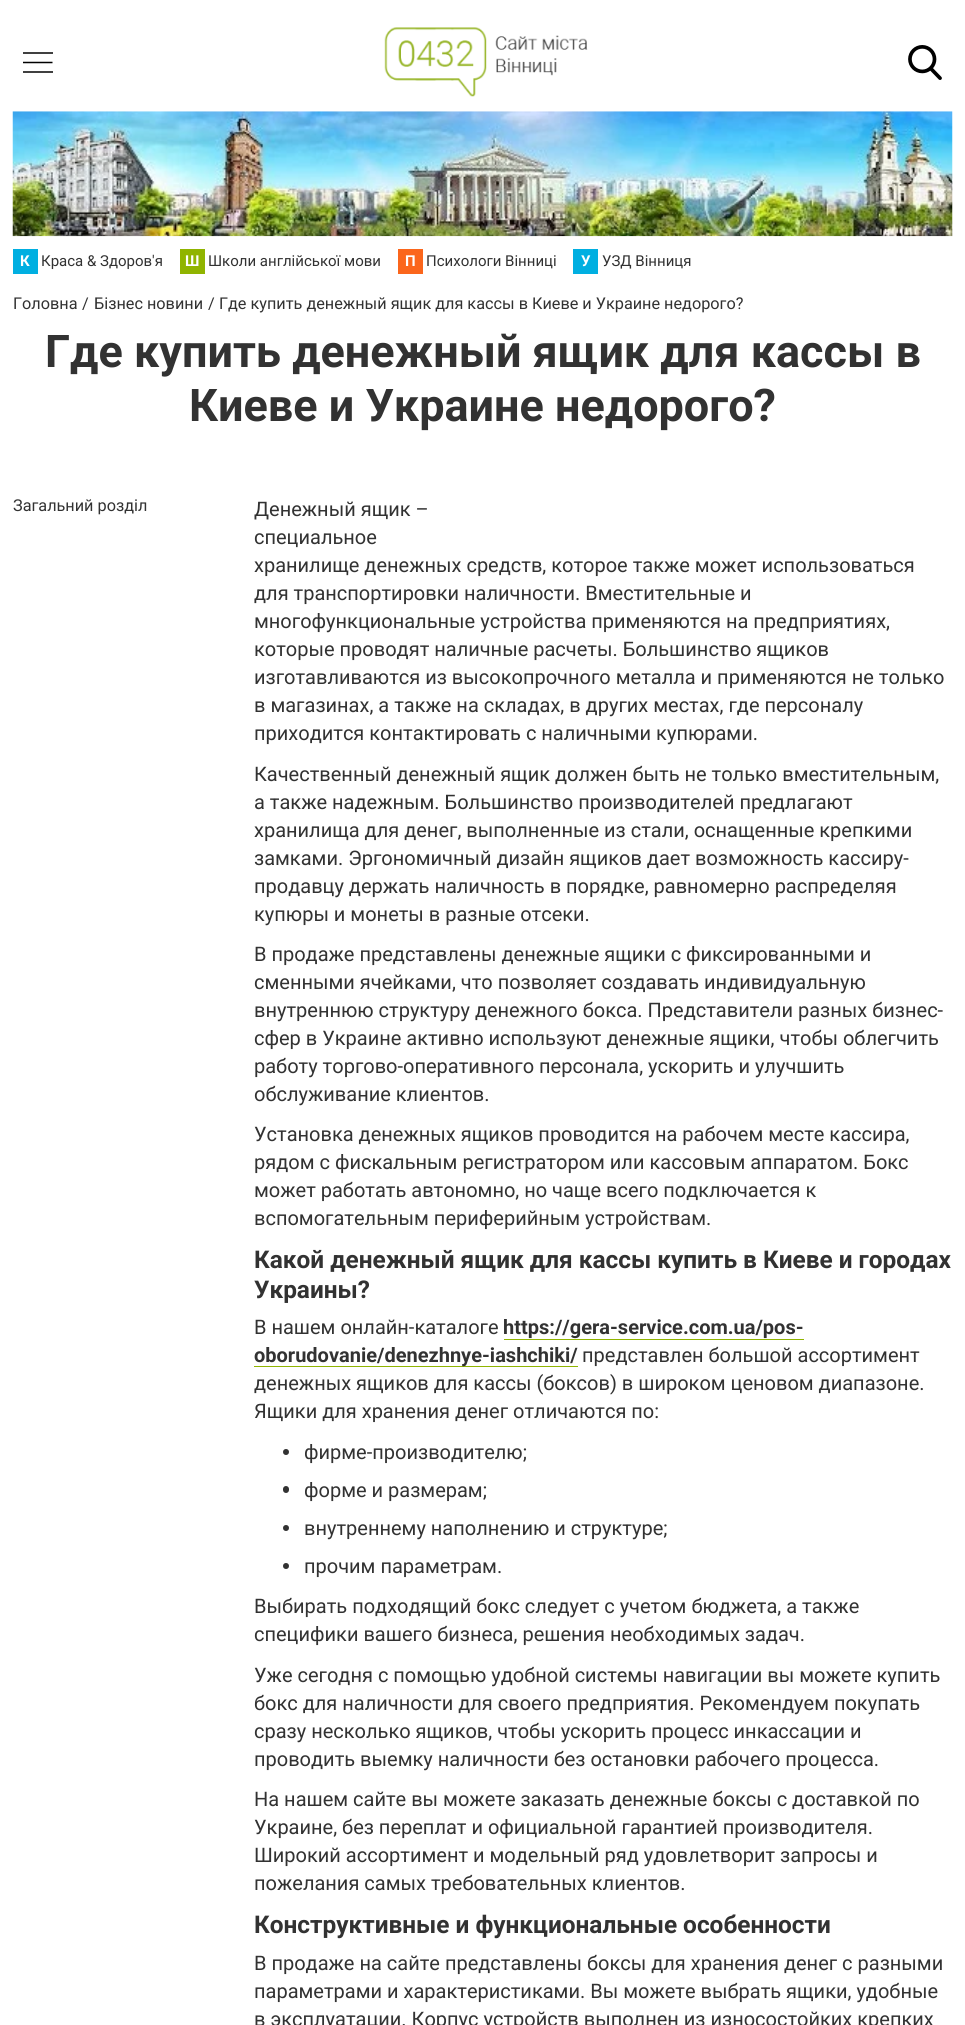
#include <cairo.h>
#include <math.h>
#include <stddef.h>

typedef struct { const char *family; double size; int italic, bold; unsigned color; } style_t;
static cairo_t *ctx;

static void ink(unsigned color) {
    cairo_set_source_rgb(ctx, (color >> 16) / 255.0, (color >> 8 & 255) / 255.0, (color & 255) / 255.0);
}

static void write(double x, double y, const char *s, const style_t *st) {
    cairo_select_font_face(ctx, st->family, st->italic ? CAIRO_FONT_SLANT_ITALIC : CAIRO_FONT_SLANT_NORMAL,
        st->bold ? CAIRO_FONT_WEIGHT_BOLD : CAIRO_FONT_WEIGHT_NORMAL);
    cairo_set_font_size(ctx, st->size);
    ink(st->color);
    cairo_move_to(ctx, x, y);
    cairo_show_text(ctx, s);
}

static void block(double x, double y, double w, double h, unsigned color) {
    ink(color);
    cairo_rectangle(ctx, x, y, w, h);
    cairo_fill(ctx);
}

static void round_path(double x, double y, double w, double h, double r) {
    cairo_new_sub_path(ctx);
    cairo_arc(ctx, x + w - r, y + h - r, r, 0, M_PI / 2);
    cairo_arc(ctx, x + r, y + h - r, r, M_PI / 2, M_PI);
    cairo_arc(ctx, x + r, y + r, r, M_PI, 1.5 * M_PI);
    cairo_arc(ctx, x + w - r, y + r, r, 1.5 * M_PI, 2 * M_PI);
    cairo_close_path(ctx);
}

static void paste(const char *path, double x, double y, double w, double h) {
    cairo_surface_t *image = cairo_image_surface_create_from_png(path);
    cairo_save(ctx);
    cairo_set_source_surface(ctx, image, x, y);
    cairo_rectangle(ctx, x, y, w, h);
    cairo_fill(ctx);
    cairo_restore(ctx);
    cairo_surface_destroy(image);
}

static const style_t s1 = {"Roboto", 15, 0, 1, 0xffffff};
static const style_t s2 = {"Roboto", 15, 0, 0, 0x323232};
static const style_t s3 = {"Roboto", 16.25, 0, 0, 0x323232};
static const style_t s4 = {"Roboto", 45, 0, 1, 0x323232};
static const style_t s5 = {"Roboto", 20, 0, 0, 0x323232};
static const style_t s6 = {"Roboto", 24.4, 0, 1, 0x323232};
static const style_t s7 = {"Roboto", 20, 0, 1, 0x323232};

int main(void) {
    cairo_surface_t *surface = cairo_image_surface_create(CAIRO_FORMAT_RGB24, 965, 2025);
    ctx = cairo_create(surface);
    cairo_font_options_t *options = cairo_font_options_create();
    cairo_font_options_set_hint_metrics(options, CAIRO_HINT_METRICS_OFF);
    cairo_font_options_set_hint_style(options, CAIRO_HINT_STYLE_NONE);
    cairo_set_font_options(ctx, options);
    cairo_set_miter_limit(ctx, 4);
    ink(0xffffff);
    cairo_paint(ctx);
    block(23, 52, 30, 2, 0x404040);
    cairo_save(ctx);
    cairo_rectangle(ctx, 23, 48, 30, 30);
    cairo_clip(ctx);
    cairo_new_path(ctx);
    cairo_move_to(ctx, 22.5, 62.5);
    cairo_line_to(ctx, 52.5, 62.5);
    ink(0x000000);
    cairo_set_line_width(ctx, 1.5);
    cairo_stroke(ctx);
    cairo_restore(ctx);
    block(23, 71, 30, 2, 0x404040);
    paste("pic1.png", 384, 27, 204, 70);
    paste("pic2.png", 908, 45, 34, 35);
    paste("pic3.png", 12, 111, 941, 126);
    block(13, 249, 25, 25, 0x00afe1);
    write(20, 266, "К", &s1);
    write(41, 266, "Краса & Здоров'я", &s2);
    block(180, 249, 25, 25, 0x90b400);
    write(185, 266, "Ш", &s1);
    write(208, 266, "Школи англійської мови", &s2);
    block(398, 249, 25, 25, 0xfb661c);
    write(405, 266, "П", &s1);
    write(426, 266, "Психологи Вінниці", &s2);
    block(573, 249, 25, 25, 0x00afe1);
    write(581, 266, "У", &s1);
    write(602, 266, "УЗД Вінниця", &s2);
    write(13, 309, "Головна", &s3);
    write(82, 309, "/", &s3);
    write(94, 309, "Бізнес новини", &s3);
    write(208, 309, "/", &s3);
    write(219, 309, "Где купить денежный ящик для кассы в Киеве и Украине недорого?", &s3);
    write(45, 367, "Где купить денежный ящик для кассы в", &s4);
    write(189, 421, "Киеве и Украине недорого?", &s4);
    write(13, 511, "Загальний розділ", &s3);
    write(254, 516, "Денежный ящик –", &s5);
    write(254, 544, "специальное", &s5);
    write(254, 572, "хранилище денежных средств, которое также может использоваться", &s5);
    write(254, 600, "для транспортировки наличности. Вместительные и", &s5);
    write(254, 628, "многофункциональные устройства применяются на предприятиях,", &s5);
    write(254, 656, "которые проводят наличные расчеты. Большинство ящиков", &s5);
    write(254, 684, "изготавливаются из высокопрочного металла и применяются не только", &s5);
    write(254, 712, "в магазинах, а также на складах, в других местах, где персоналу", &s5);
    write(254, 740, "приходится контактировать с наличными купюрами.", &s5);
    write(254, 781, "Качественный денежный ящик должен быть не только вместительным,", &s5);
    write(254, 809, "а также надежным. Большинство производителей предлагают", &s5);
    write(254, 837, "хранилища для денег, выполненные из стали, оснащенные крепкими", &s5);
    write(254, 865, "замками. Эргономичный дизайн ящиков дает возможность кассиру-", &s5);
    write(254, 893, "продавцу держать наличность в порядке, равномерно распределяя", &s5);
    write(254, 921, "купюры и монеты в разные отсеки.", &s5);
    write(254, 961, "В продаже представлены денежные ящики с фиксированными и", &s5);
    write(254, 989, "сменными ячейками, что позволяет создавать индивидуальную", &s5);
    write(254, 1017, "внутреннюю структуру денежного бокса. Представители разных бизнес-", &s5);
    write(254, 1045, "сфер в Украине активно используют денежные ящики, чтобы облегчить", &s5);
    write(254, 1073, "работу торгово-оперативного персонала, ускорить и улучшить", &s5);
    write(254, 1101, "обслуживание клиентов.", &s5);
    write(254, 1141, "Установка денежных ящиков проводится на рабочем месте кассира,", &s5);
    write(254, 1169, "рядом с фискальным регистратором или кассовым аппаратом. Бокс", &s5);
    write(254, 1197, "может работать автономно, но чаще всего подключается к", &s5);
    write(254, 1225, "вспомогательным периферийным устройствам.", &s5);
    write(254, 1268, "Какой денежный ящик для кассы купить в Киеве и городах", &s6);
    write(254, 1298, "Украины?", &s6);
    write(254, 1334, "В нашем онлайн-каталоге", &s5);
    write(503, 1334, "https://gera-service.com.ua/pos-", &s7);
    block(504, 1339, 300, 1, 0x90b400);
    block(254, 1366, 324, 1, 0x90b400);
    write(254, 1362, "oborudovanie/denezhnye-iashchiki/", &s7);
    write(582, 1362, "представлен большой ассортимент", &s5);
    write(254, 1390, "денежных ящиков для кассы (боксов) в широком ценовом диапазоне.", &s5);
    write(254, 1418, "Ящики для хранения денег отличаются по:", &s5);
    cairo_new_path(ctx);
    cairo_arc(ctx, 286, 1452, 3, 0, 2 * M_PI);
    cairo_fill(ctx);
    write(304, 1459, "фирме-производителю;", &s5);
    round_path(283, 1486, 6, 7, 3);
    cairo_fill(ctx);
    write(304, 1497, "форме и размерам;", &s5);
    cairo_new_path(ctx);
    cairo_arc(ctx, 286, 1528, 3, 0, 2 * M_PI);
    cairo_fill(ctx);
    write(304, 1535, "внутреннему наполнению и структуре;", &s5);
    cairo_new_path(ctx);
    cairo_arc(ctx, 286, 1566, 3, 0, 2 * M_PI);
    cairo_fill(ctx);
    write(304, 1573, "прочим параметрам.", &s5);
    write(254, 1613, "Выбирать подходящий бокс следует с учетом бюджета, а также", &s5);
    write(254, 1641, "специфики вашего бизнеса, решения необходимых задач.", &s5);
    write(254, 1682, "Уже сегодня с помощью удобной системы навигации вы можете купить", &s5);
    write(254, 1710, "бокс для наличности для своего предприятия. Рекомендуем покупать", &s5);
    write(254, 1738, "сразу несколько ящиков, чтобы ускорить процесс инкассации и", &s5);
    write(254, 1766, "проводить выемку наличности без остановки рабочего процесса.", &s5);
    write(254, 1806, "На нашем сайте вы можете заказать денежные боксы с доставкой по", &s5);
    write(254, 1834, "Украине, без переплат и официальной гарантией производителя.", &s5);
    write(254, 1862, "Широкий ассортимент и модельный ряд удовлетворит запросы и", &s5);
    write(254, 1890, "пожелания самых требовательных клиентов.", &s5);
    write(254, 1933, "Конструктивные и функциональные особенности", &s6);
    write(254, 1970, "В продаже на сайте представлены боксы для хранения денег с разными", &s5);
    write(254, 1998, "параметрами и характеристиками. Вы можете выбрать ящики, удобные", &s5);
    write(254, 2026, "в эксплуатации. Корпус устройств выполнен из износостойких крепких", &s5);
    cairo_surface_write_to_png(surface, "screenshot.png");
    cairo_font_options_destroy(options);
    cairo_destroy(ctx);
    cairo_surface_destroy(surface);
    return 0;
}
